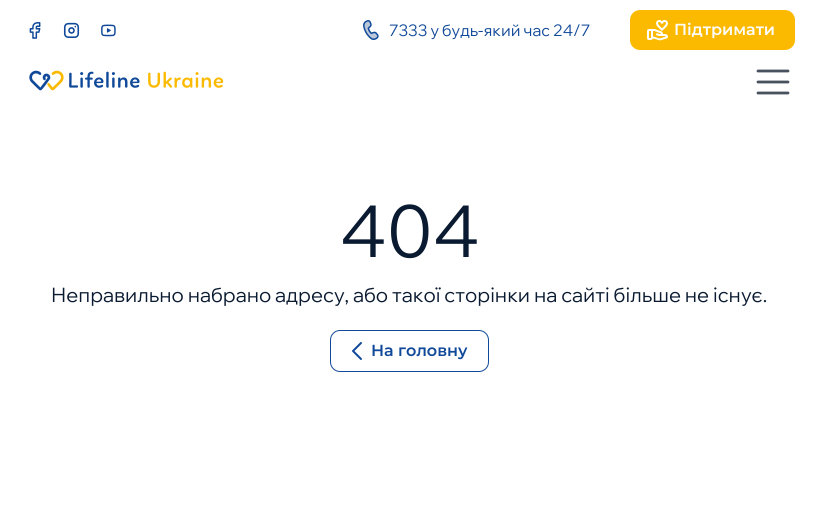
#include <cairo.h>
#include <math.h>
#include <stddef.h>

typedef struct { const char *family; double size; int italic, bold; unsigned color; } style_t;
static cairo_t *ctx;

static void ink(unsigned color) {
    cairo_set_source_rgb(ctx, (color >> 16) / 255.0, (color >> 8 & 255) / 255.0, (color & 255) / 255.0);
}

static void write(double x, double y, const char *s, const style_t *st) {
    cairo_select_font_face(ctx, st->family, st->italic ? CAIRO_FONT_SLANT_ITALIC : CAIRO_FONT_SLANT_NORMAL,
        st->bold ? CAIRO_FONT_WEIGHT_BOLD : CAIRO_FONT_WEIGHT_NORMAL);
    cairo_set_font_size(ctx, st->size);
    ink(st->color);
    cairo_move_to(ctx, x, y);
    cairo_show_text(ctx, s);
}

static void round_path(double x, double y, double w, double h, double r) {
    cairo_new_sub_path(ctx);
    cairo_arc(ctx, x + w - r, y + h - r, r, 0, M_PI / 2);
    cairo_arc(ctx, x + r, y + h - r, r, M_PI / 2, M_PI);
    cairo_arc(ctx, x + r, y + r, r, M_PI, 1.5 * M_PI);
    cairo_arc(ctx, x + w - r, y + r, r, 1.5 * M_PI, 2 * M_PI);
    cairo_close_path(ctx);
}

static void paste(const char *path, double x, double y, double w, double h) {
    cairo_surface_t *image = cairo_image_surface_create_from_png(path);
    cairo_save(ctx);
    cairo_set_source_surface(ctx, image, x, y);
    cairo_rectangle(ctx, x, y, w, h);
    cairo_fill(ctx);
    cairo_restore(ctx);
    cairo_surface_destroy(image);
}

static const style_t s1 = {"Wix Madefor Display", 16, 0, 0, 0x104999};
static const style_t s2 = {"Montserrat SemiBold", 16, 0, 0, 0xfcfcfc};
static const style_t s3 = {"Wix Madefor Display", 72, 0, 0, 0x0a1a30};
static const style_t s4 = {"Wix Madefor Display", 20, 0, 0, 0x0a1a30};
static const style_t s5 = {"Montserrat SemiBold", 16, 0, 0, 0x104999};

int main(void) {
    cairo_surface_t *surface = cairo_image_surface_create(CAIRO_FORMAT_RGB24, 819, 514);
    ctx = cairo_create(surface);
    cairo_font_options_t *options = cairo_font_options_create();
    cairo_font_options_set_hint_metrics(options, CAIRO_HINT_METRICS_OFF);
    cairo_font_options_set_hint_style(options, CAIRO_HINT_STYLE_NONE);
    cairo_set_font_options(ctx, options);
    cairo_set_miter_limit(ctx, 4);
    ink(0xffffff);
    cairo_paint(ctx);
    paste("pic1.png", 29, 22, 12, 17);
    paste("pic2.png", 63, 22, 17, 16);
    paste("pic3.png", 101, 24, 15, 13);
    paste("pic4.png", 363, 20, 16, 20);
    write(389, 36, "7333 у будь-який час 24/7", &s1);
    ink(0xfbba00);
    round_path(630, 10, 165, 40, 10);
    cairo_fill(ctx);
    paste("pic5.png", 647, 20, 21, 21);
    write(674, 35, "Підтримати", &s2);
    paste("pic6.png", 29, 70, 195, 21);
    cairo_new_path(ctx);
    cairo_move_to(ctx, 758, 71);
    cairo_line_to(ctx, 788, 71);
    cairo_move_to(ctx, 758, 82);
    cairo_line_to(ctx, 788, 82);
    cairo_move_to(ctx, 758, 93);
    cairo_line_to(ctx, 788, 93);
    ink(0x48525f);
    cairo_set_line_width(ctx, 2.8);
    cairo_set_line_cap(ctx, CAIRO_LINE_CAP_ROUND);
    cairo_set_line_join(ctx, CAIRO_LINE_JOIN_ROUND);
    cairo_stroke(ctx);
    write(340, 257, "404", &s3);
    write(51, 302, "Неправильно набрано адресу, або такої сторінки на сайті більше не існує.", &s4);
    round_path(330.5, 330.5, 158, 41, 9.5);
    ink(0x104999);
    cairo_set_line_width(ctx, 1);
    cairo_set_line_cap(ctx, CAIRO_LINE_CAP_BUTT);
    cairo_set_line_join(ctx, CAIRO_LINE_JOIN_MITER);
    cairo_stroke(ctx);
    cairo_new_path(ctx);
    cairo_move_to(ctx, 361, 343);
    cairo_line_to(ctx, 353, 351);
    cairo_line_to(ctx, 361, 359);
    cairo_set_line_width(ctx, 2);
    cairo_set_line_cap(ctx, CAIRO_LINE_CAP_ROUND);
    cairo_set_line_join(ctx, CAIRO_LINE_JOIN_ROUND);
    cairo_stroke(ctx);
    write(371, 356, "На головну", &s5);
    cairo_surface_write_to_png(surface, "screenshot.png");
    cairo_font_options_destroy(options);
    cairo_destroy(ctx);
    cairo_surface_destroy(surface);
    return 0;
}
